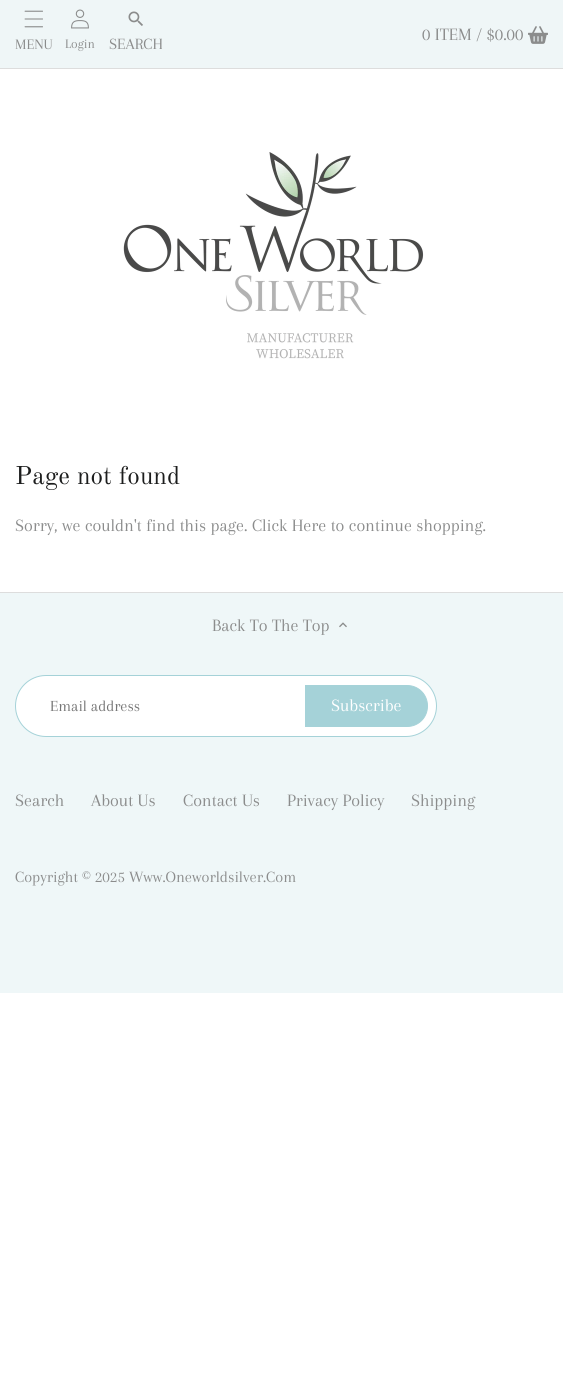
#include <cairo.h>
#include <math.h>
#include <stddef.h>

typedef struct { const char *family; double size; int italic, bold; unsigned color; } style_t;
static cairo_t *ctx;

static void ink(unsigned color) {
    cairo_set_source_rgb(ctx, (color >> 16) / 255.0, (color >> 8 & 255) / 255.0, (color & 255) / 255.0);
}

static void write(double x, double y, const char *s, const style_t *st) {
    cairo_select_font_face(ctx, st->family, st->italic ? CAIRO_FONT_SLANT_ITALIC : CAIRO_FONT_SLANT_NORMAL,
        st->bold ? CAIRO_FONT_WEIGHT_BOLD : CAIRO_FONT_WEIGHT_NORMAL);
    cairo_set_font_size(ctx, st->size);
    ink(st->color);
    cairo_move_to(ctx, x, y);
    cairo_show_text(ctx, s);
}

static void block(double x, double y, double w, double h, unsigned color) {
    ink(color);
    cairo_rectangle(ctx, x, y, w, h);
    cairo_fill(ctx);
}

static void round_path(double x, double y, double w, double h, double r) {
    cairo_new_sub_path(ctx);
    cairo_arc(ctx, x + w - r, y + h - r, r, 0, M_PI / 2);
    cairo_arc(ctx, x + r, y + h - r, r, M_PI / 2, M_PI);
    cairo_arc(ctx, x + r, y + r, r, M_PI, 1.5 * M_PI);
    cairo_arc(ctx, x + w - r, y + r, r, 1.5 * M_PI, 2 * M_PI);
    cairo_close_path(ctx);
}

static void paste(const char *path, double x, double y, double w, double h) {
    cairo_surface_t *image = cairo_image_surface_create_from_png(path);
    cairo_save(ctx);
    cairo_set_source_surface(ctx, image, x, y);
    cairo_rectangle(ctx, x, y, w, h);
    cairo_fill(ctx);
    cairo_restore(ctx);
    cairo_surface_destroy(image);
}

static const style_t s1 = {"Arapey", 18, 0, 0, 0x8b8c8c};
static const style_t s2 = {"Arapey", 15, 0, 0, 0x8b8c8c};
static const style_t s3 = {"Arapey", 13.5, 0, 0, 0x8b8c8c};
static const style_t s4 = {"Arapey", 16.25, 0, 0, 0x8b8c8c};
static const style_t s5 = {"Old Standard TT", 25.25, 0, 0, 0x1c1d1d};
static const style_t s6 = {"Arapey", 16, 0, 0, 0x757575};
static const style_t s7 = {"Arapey", 18, 0, 0, 0xffffff};

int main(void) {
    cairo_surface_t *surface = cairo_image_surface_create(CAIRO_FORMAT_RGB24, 563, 1377);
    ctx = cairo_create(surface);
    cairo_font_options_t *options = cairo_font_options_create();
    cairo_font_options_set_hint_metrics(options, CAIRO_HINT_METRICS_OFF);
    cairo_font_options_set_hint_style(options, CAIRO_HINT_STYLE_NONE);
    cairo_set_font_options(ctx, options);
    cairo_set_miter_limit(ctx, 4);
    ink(0xffffff);
    cairo_paint(ctx);
    block(0, 0, 563, 68, 0xeff6f7);
    block(0, 68, 563, 1, 0xdddddd);
    write(422, 40, "0 ITEM / $0.00", &s1);
    paste("pic1.png", 528, 26, 20, 18);
    paste("pic2.png", 24, 10, 19, 18);
    write(15, 49, "MENU", &s2);
    paste("pic3.png", 71, 9, 18, 20);
    write(65, 48, "Login", &s3);
    paste("pic4.png", 128, 11, 15, 15);
    write(109, 49, "SEARCH", &s4);
    paste("pic5.png", 123, 152, 301, 207);
    write(15, 484, "Page not found", &s5);
    write(15, 531, "Sorry, we couldn't find this page. Click Here to continue shopping.", &s1);
    block(0, 593, 563, 400, 0xeff7f8);
    block(0, 592, 563, 1, 0xdddddd);
    write(212, 631, "Back To The Top", &s1);
    paste("pic6.png", 339, 622, 8, 6);
    ink(0xffffff);
    round_path(15.5, 675.5, 421, 61, 30.5);
    cairo_fill_preserve(ctx);
    ink(0xa5d2d8);
    cairo_set_line_width(ctx, 1);
    cairo_stroke(ctx);
    write(50, 711, "Email address", &s6);
    ink(0xa5d2d8);
    cairo_new_path(ctx);
    cairo_move_to(ctx, 305.5, 685.5);
    cairo_line_to(ctx, 407, 685.5);
    cairo_curve_to(ctx, 418.5, 685.5, 427.5, 694.5, 427.5, 706);
    cairo_curve_to(ctx, 427.5, 717.5, 418.5, 726.5, 407, 726.5);
    cairo_line_to(ctx, 305.5, 726.5);
    cairo_close_path(ctx);
    cairo_fill_preserve(ctx);
    cairo_stroke(ctx);
    write(331, 711, "Subscribe", &s7);
    write(15, 806, "Search", &s1);
    write(91, 806, "About Us", &s1);
    write(183, 806, "Contact Us", &s1);
    write(287, 806, "Privacy Policy", &s1);
    write(411, 806, "Shipping", &s1);
    write(15, 882, "Copyright © 2025 Www.Oneworldsilver.Com", &s4);
    cairo_surface_write_to_png(surface, "screenshot.png");
    cairo_font_options_destroy(options);
    cairo_destroy(ctx);
    cairo_surface_destroy(surface);
    return 0;
}
